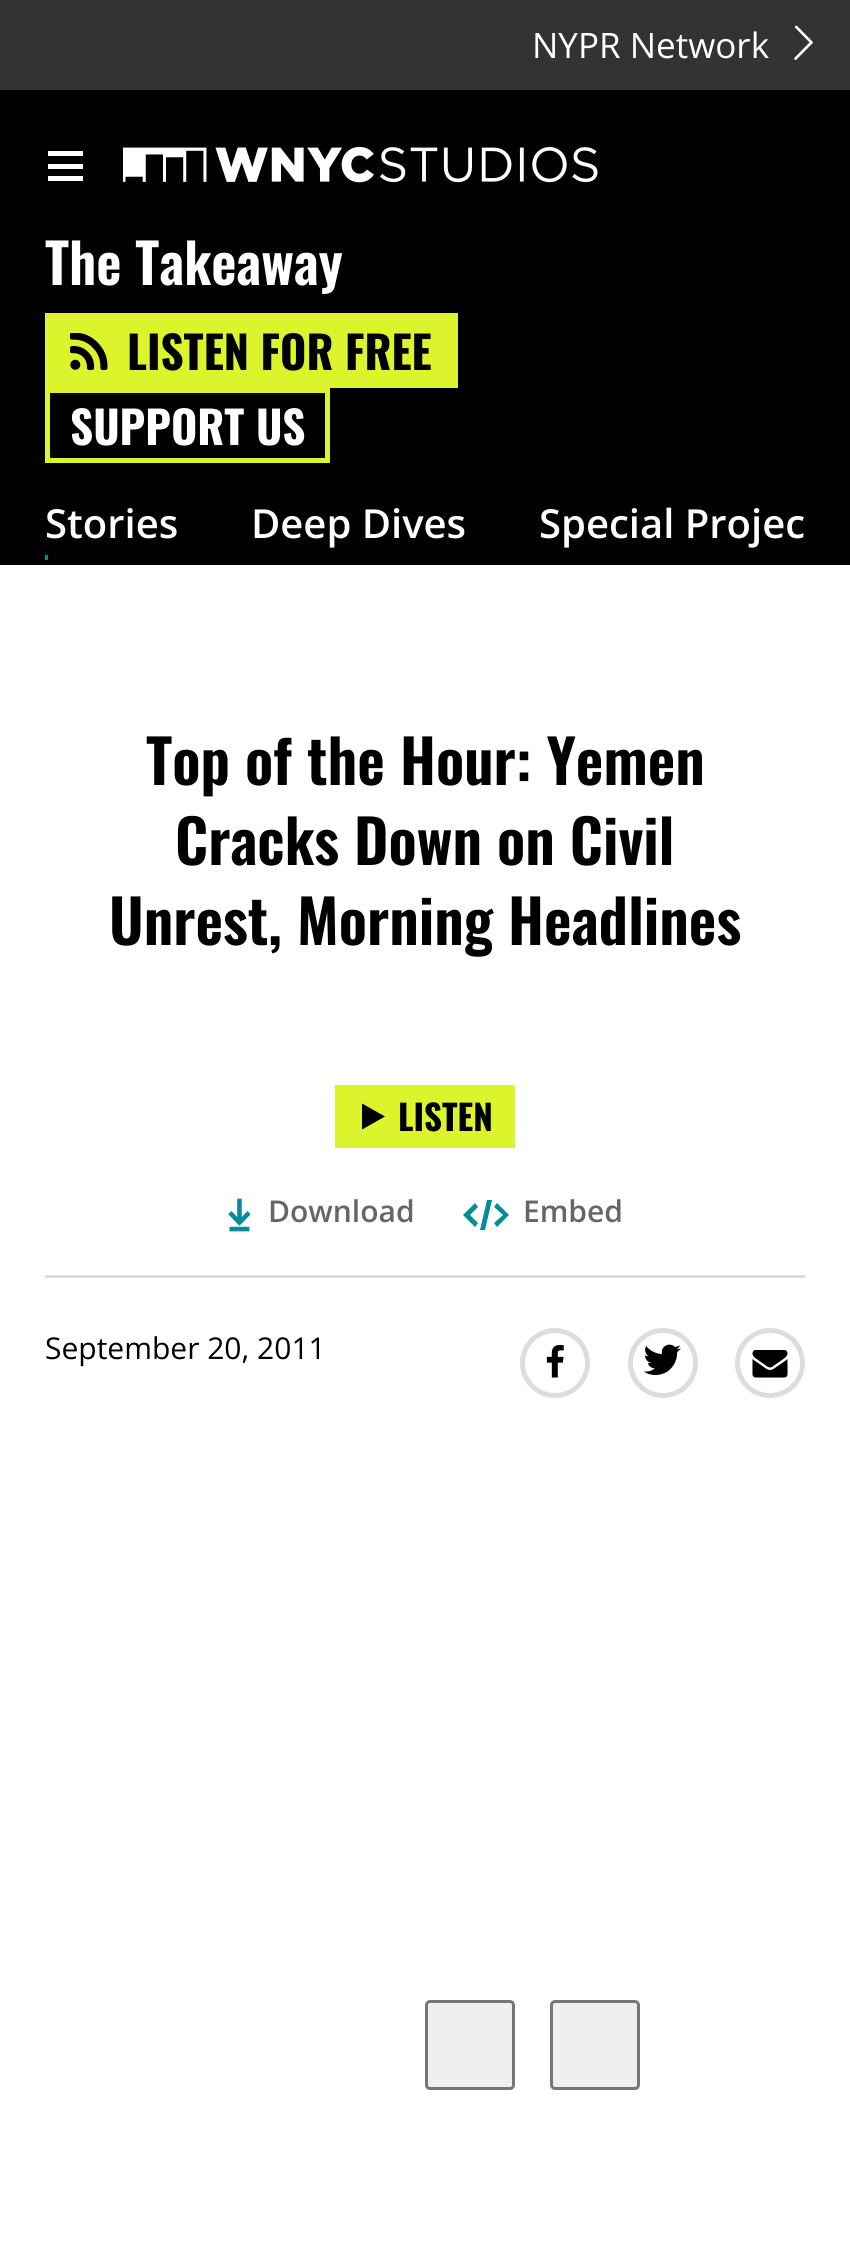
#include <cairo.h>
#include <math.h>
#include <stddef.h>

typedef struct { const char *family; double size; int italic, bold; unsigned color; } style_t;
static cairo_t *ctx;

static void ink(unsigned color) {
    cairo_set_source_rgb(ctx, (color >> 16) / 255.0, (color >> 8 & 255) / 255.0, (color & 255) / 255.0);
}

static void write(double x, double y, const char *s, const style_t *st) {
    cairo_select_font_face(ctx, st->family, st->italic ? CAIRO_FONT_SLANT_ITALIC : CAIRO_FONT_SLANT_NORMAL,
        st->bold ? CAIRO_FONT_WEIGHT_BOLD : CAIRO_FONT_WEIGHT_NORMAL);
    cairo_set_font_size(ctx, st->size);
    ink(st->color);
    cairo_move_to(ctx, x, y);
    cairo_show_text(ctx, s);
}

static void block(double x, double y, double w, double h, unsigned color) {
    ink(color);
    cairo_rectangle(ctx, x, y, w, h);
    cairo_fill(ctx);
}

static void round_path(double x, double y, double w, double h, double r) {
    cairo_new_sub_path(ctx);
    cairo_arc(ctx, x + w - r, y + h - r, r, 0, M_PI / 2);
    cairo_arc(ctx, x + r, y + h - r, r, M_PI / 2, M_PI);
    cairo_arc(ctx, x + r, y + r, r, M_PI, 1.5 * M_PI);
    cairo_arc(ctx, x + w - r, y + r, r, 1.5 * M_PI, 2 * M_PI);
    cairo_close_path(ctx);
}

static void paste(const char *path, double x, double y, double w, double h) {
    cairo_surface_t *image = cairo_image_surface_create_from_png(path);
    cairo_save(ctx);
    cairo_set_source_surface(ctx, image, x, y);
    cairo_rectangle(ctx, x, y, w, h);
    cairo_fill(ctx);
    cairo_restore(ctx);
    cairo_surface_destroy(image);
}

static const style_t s1 = {"Open Sans", 35, 0, 0, 0xffffff};
static const style_t s2 = {"Oswald SemiBold", 55, 0, 0, 0xffffff};
static const style_t s3 = {"Oswald", 45, 0, 1, 0x000000};
static const style_t s4 = {"Oswald", 45, 0, 1, 0xffffff};
static const style_t s5 = {"Open Sans SemiBold", 40, 0, 0, 0xffffff};
static const style_t s6 = {"Oswald SemiBold", 60, 0, 0, 0x000000};
static const style_t s7 = {"Oswald", 35, 0, 1, 0x000000};
static const style_t s8 = {"Open Sans SemiBold", 30, 0, 0, 0x666666};
static const style_t s9 = {"Open Sans", 30, 0, 0, 0x000000};

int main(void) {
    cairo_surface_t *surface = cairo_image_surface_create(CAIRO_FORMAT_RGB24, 850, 2267);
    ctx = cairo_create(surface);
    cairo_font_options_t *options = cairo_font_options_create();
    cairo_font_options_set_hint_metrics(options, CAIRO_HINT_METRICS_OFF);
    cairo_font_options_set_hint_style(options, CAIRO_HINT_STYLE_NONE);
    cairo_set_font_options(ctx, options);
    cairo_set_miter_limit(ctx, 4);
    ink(0xffffff);
    cairo_paint(ctx);
    block(0, 0, 850, 90, 0x333333);
    write(532, 58, "NYPR Network", &s1);
    paste("pic1.png", 794, 25, 19, 35);
    block(0, 90, 850, 475, 0x010101);
    block(48, 151, 35, 5, 0xffffff);
    block(48, 164, 35, 5, 0xffffff);
    block(48, 176, 35, 5, 0xffffff);
    paste("pic2.png", 123, 146, 475, 37);
    write(45, 285, "The Takeaway", &s2);
    block(45, 313, 413, 75, 0xdcf42c);
    paste("pic3.png", 70, 333, 38, 37);
    write(127, 370, "LISTEN FOR FREE", &s3);
    cairo_rectangle(ctx, 47.5, 390.5, 280, 70);
    ink(0xdcf42c);
    cairo_set_line_width(ctx, 5);
    cairo_stroke(ctx);
    write(70, 445, "SUPPORT US", &s4);
    write(45, 538, "Stories", &s5);
    write(251, 538, "Deep Dives", &s5);
    write(539, 538, "Special Projec", &s5);
    block(45, 555, 3, 5, 0x048d99);
    write(146, 785, "Top of the Hour: Yemen", &s6);
    write(175, 865, "Cracks Down on Civil", &s6);
    write(109, 945, "Unrest, Morning Headlines", &s6);
    block(335, 1085, 180, 63, 0xdcf42c);
    ink(0x000000);
    cairo_set_fill_rule(ctx, CAIRO_FILL_RULE_EVEN_ODD);
    cairo_new_path(ctx);
    cairo_move_to(ctx, 385, 1116.5);
    cairo_line_to(ctx, 362, 1129.5);
    cairo_line_to(ctx, 362, 1103.5);
    cairo_close_path(ctx);
    cairo_fill(ctx);
    write(398, 1131, "LISTEN", &s7);
    paste("pic4.png", 228, 1198, 22, 34);
    write(268, 1222, "Download", &s8);
    ink(0x048d99);
    cairo_set_fill_rule(ctx, CAIRO_FILL_RULE_WINDING);
    cairo_new_path(ctx);
    cairo_move_to(ctx, 497, 1203);
    cairo_line_to(ctx, 494, 1207);
    cairo_line_to(ctx, 503, 1215);
    cairo_line_to(ctx, 494, 1223);
    cairo_line_to(ctx, 497, 1227);
    cairo_line_to(ctx, 509, 1215);
    cairo_close_path(ctx);
    cairo_move_to(ctx, 475, 1203);
    cairo_line_to(ctx, 463, 1215);
    cairo_line_to(ctx, 475, 1227);
    cairo_line_to(ctx, 478, 1223);
    cairo_line_to(ctx, 470, 1215);
    cairo_line_to(ctx, 478, 1207);
    cairo_close_path(ctx);
    cairo_move_to(ctx, 480, 1230);
    cairo_line_to(ctx, 485, 1230);
    cairo_line_to(ctx, 492, 1200);
    cairo_line_to(ctx, 487, 1200);
    cairo_close_path(ctx);
    cairo_fill(ctx);
    write(523, 1222, "Embed", &s8);
    block(45, 1275, 760, 3, 0xdddddd);
    write(45, 1359, "September 20, 2011", &s9);
    cairo_new_path(ctx);
    cairo_arc(ctx, 555, 1363, 32.5, 0, 2 * M_PI);
    ink(0xdddddd);
    cairo_stroke(ctx);
    paste("pic5.png", 546, 1345, 18, 33);
    cairo_arc(ctx, 663, 1363, 32.5, 0, 2 * M_PI);
    cairo_stroke(ctx);
    paste("pic6.png", 643, 1344, 38, 31);
    cairo_arc(ctx, 770, 1363, 32.5, 0, 2 * M_PI);
    cairo_stroke(ctx);
    paste("pic7.png", 752, 1350, 36, 28);
    ink(0xefefef);
    round_path(426.5, 2001.5, 87, 87, 3.5);
    cairo_fill_preserve(ctx);
    ink(0x767676);
    cairo_set_line_width(ctx, 3);
    cairo_stroke(ctx);
    ink(0xefefef);
    round_path(551.5, 2001.5, 87, 87, 3.5);
    cairo_fill_preserve(ctx);
    ink(0x767676);
    cairo_stroke(ctx);
    cairo_surface_write_to_png(surface, "screenshot.png");
    cairo_font_options_destroy(options);
    cairo_destroy(ctx);
    cairo_surface_destroy(surface);
    return 0;
}
